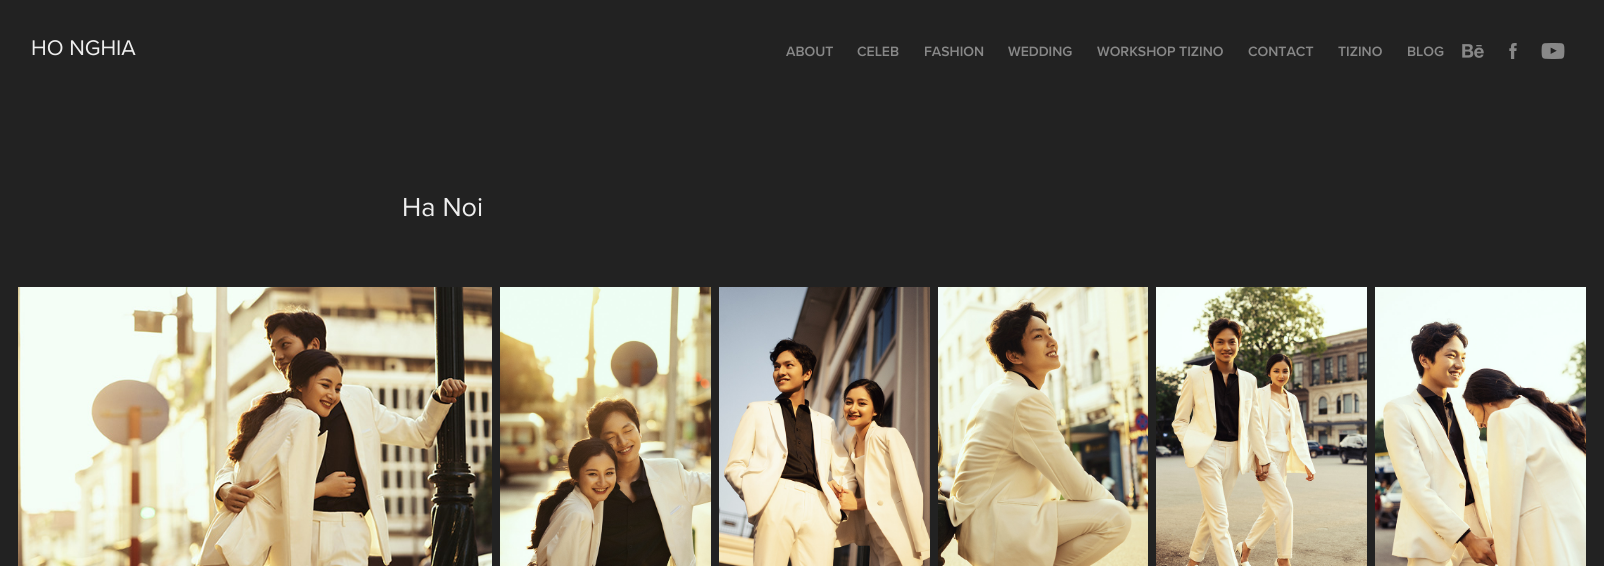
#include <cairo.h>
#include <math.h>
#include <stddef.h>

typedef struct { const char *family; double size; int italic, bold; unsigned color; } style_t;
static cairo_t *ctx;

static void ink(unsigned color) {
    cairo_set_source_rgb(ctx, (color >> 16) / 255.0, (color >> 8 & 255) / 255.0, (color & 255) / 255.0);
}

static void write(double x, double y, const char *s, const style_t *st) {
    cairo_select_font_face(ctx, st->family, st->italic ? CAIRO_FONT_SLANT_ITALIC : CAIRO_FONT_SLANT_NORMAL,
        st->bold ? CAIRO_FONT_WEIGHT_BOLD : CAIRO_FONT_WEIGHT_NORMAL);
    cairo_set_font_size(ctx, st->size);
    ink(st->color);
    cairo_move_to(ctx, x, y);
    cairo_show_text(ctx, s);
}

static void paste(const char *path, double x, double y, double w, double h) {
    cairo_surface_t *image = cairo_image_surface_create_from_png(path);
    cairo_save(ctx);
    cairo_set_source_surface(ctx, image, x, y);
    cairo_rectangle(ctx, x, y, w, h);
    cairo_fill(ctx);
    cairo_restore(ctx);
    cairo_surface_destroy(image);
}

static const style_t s1 = {"Proxima Nova", 22, 0, 0, 0xeeeeee};
static const style_t s2 = {"Proxima Nova SemiBold", 14, 0, 0, 0x888888};
static const style_t s3 = {"Proxima Nova", 27, 0, 0, 0xeeeeee};

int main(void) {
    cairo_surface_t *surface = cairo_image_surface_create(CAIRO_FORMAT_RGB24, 1604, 566);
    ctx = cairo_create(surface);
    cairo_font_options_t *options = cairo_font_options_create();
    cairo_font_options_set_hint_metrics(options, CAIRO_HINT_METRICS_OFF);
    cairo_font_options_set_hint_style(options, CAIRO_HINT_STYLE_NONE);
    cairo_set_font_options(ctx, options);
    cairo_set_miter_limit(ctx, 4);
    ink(0x222222);
    cairo_paint(ctx);
    write(31, 55, "HO NGHIA", &s1);
    write(786, 56, "ABOUT", &s2);
    write(857, 56, "CELEB", &s2);
    write(924, 56, "FASHION", &s2);
    write(1008, 56, "WEDDING", &s2);
    write(1097, 56, "WORKSHOP TIZINO", &s2);
    write(1248, 56, "CONTACT", &s2);
    write(1338, 56, "TIZINO", &s2);
    write(1407, 56, "BLOG", &s2);
    paste("pic1.png", 1462, 44, 22, 14);
    paste("pic2.png", 1509, 43, 8, 16);
    paste("pic3.png", 1541, 43, 24, 16);
    write(402, 216, "Ha Noi", &s3);
    paste("pic4.png", 18, 287, 474, 279);
    paste("pic5.png", 500, 287, 211, 279);
    paste("pic6.png", 719, 287, 211, 279);
    paste("pic7.png", 938, 287, 210, 279);
    paste("pic8.png", 1156, 287, 211, 279);
    paste("pic9.png", 1375, 287, 211, 279);
    cairo_surface_write_to_png(surface, "screenshot.png");
    cairo_font_options_destroy(options);
    cairo_destroy(ctx);
    cairo_surface_destroy(surface);
    return 0;
}
